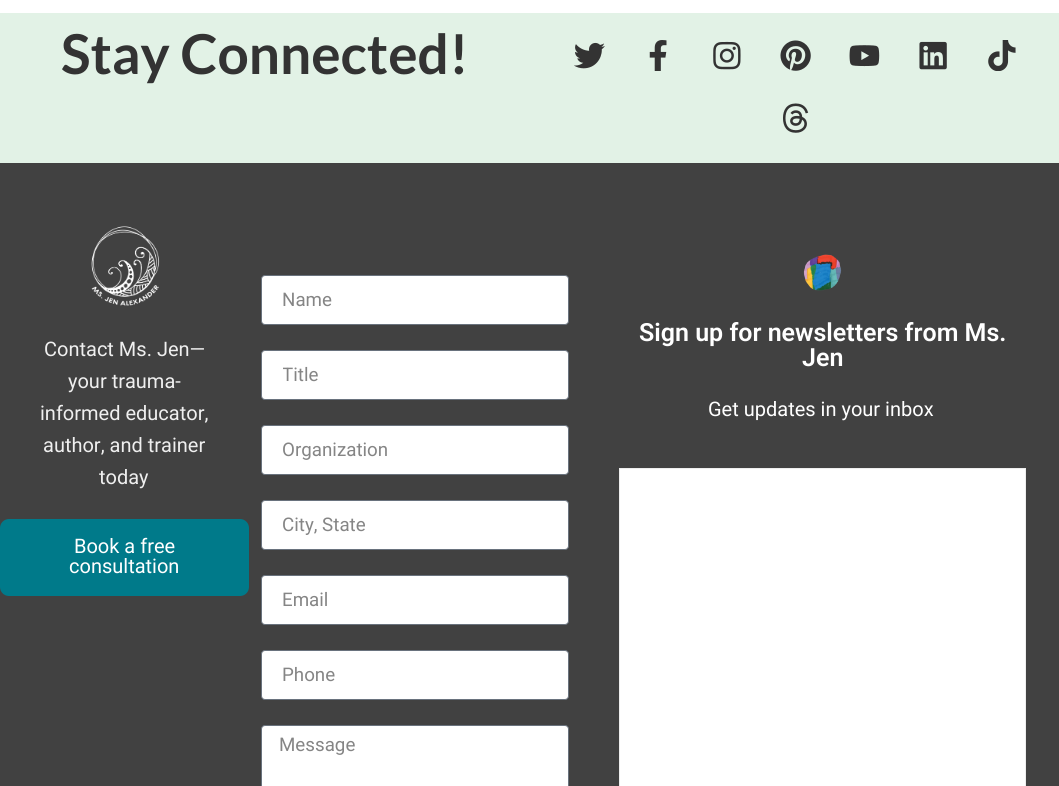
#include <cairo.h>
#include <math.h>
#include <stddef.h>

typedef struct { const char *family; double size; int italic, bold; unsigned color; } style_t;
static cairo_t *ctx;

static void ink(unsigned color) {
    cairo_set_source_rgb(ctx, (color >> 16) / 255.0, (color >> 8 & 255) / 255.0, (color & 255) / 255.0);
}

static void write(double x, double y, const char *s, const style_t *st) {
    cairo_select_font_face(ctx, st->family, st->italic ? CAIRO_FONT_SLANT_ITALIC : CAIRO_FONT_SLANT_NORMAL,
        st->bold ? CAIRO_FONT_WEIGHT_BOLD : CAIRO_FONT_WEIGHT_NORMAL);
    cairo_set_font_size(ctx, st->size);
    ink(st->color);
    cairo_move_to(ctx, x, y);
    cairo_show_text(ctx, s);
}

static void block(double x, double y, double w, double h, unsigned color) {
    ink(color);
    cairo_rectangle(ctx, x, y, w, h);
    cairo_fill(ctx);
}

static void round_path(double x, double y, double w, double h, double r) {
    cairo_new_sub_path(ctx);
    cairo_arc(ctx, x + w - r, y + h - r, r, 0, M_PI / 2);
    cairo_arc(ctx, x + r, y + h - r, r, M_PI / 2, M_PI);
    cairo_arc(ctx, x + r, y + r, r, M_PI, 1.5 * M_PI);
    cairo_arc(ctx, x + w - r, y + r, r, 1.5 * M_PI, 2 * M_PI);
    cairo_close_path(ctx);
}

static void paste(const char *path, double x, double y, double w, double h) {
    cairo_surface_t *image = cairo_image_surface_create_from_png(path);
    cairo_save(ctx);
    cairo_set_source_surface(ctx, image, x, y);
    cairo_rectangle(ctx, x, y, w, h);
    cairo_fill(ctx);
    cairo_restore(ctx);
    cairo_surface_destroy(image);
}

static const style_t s1 = {"Lato", 55, 0, 1, 0x333333};
static const style_t s2 = {"Roboto", 20, 0, 0, 0xefefef};
static const style_t s3 = {"Roboto", 20, 0, 0, 0xffffff};
static const style_t s4 = {"Roboto", 18.75, 0, 0, 0x858585};
static const style_t s5 = {"Roboto SemiBold", 25, 0, 0, 0xffffff};

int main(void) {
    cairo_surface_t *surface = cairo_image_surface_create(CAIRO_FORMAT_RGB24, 1059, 786);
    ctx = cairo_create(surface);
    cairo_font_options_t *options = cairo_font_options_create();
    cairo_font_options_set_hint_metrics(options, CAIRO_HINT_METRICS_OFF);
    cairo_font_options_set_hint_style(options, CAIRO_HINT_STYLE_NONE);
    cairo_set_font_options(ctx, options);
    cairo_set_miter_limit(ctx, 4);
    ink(0xffffff);
    cairo_paint(ctx);
    block(0, 13, 1059, 150, 0xe2f2e6);
    write(61, 74, "Stay Connected!", &s1);
    paste("pic1.png", 574, 42, 31, 27);
    paste("pic2.png", 649, 40, 18, 31);
    paste("pic3.png", 713, 41, 28, 29);
    paste("pic4.png", 780, 40, 31, 31);
    paste("pic5.png", 849, 45, 31, 22);
    paste("pic6.png", 919, 41, 28, 29);
    paste("pic7.png", 988, 40, 28, 31);
    paste("pic8.png", 783, 103, 26, 30);
    block(0, 163, 1059, 623, 0x414141);
    paste("pic9.png", 91, 226, 69, 80);
    write(44, 356, "Contact Ms. Jen—", &s2);
    write(68, 388, "your trauma-", &s2);
    write(40, 420, "informed educator,", &s2);
    write(43, 452, "author, and trainer", &s2);
    write(99, 484, "today", &s2);
    ink(0x007a8a);
    round_path(0, 519, 249, 77, 9);
    cairo_fill(ctx);
    write(74, 553, "Book a free", &s3);
    write(69, 573, "consultation", &s3);
    round_path(261.5, 275.5, 307, 49, 3.5);
    cairo_fill_preserve(ctx);
    ink(0x69727d);
    cairo_set_line_width(ctx, 1);
    cairo_stroke(ctx);
    write(282, 306, "Name", &s4);
    ink(0xffffff);
    round_path(261.5, 350.5, 307, 49, 3.5);
    cairo_fill_preserve(ctx);
    ink(0x69727d);
    cairo_stroke(ctx);
    cairo_save(ctx);
    cairo_rectangle(ctx, 283, 363, 265, 22);
    cairo_clip(ctx);
    write(282, 381, "Title", &s4);
    cairo_restore(ctx);
    ink(0xffffff);
    round_path(261.5, 425.5, 307, 49, 3.5);
    cairo_fill_preserve(ctx);
    ink(0x69727d);
    cairo_stroke(ctx);
    write(282, 456, "Organization", &s4);
    ink(0xffffff);
    round_path(261.5, 500.5, 307, 49, 3.5);
    cairo_fill_preserve(ctx);
    ink(0x69727d);
    cairo_stroke(ctx);
    write(282, 531, "City, State", &s4);
    ink(0xffffff);
    round_path(261.5, 575.5, 307, 49, 3.5);
    cairo_fill_preserve(ctx);
    ink(0x69727d);
    cairo_stroke(ctx);
    write(282, 606, "Email", &s4);
    ink(0xffffff);
    round_path(261.5, 650.5, 307, 49, 3.5);
    cairo_fill_preserve(ctx);
    ink(0x69727d);
    cairo_stroke(ctx);
    write(282, 681, "Phone", &s4);
    ink(0xffffff);
    round_path(261.5, 725.5, 307, 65, 3.5);
    cairo_fill_preserve(ctx);
    ink(0x69727d);
    cairo_stroke(ctx);
    write(279, 751, "Message", &s4);
    paste("pic10.png", 803, 254, 39, 37);
    write(639, 341, "Sign up for newsletters from Ms.", &s5);
    write(802, 366, "Jen", &s5);
    write(708, 416, "Get updates in your inbox", &s3);
    cairo_rectangle(ctx, 619.5, 468.5, 406, 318);
    cairo_fill_preserve(ctx);
    ink(0xeeeeee);
    cairo_stroke(ctx);
    cairo_surface_write_to_png(surface, "screenshot.png");
    cairo_font_options_destroy(options);
    cairo_destroy(ctx);
    cairo_surface_destroy(surface);
    return 0;
}
